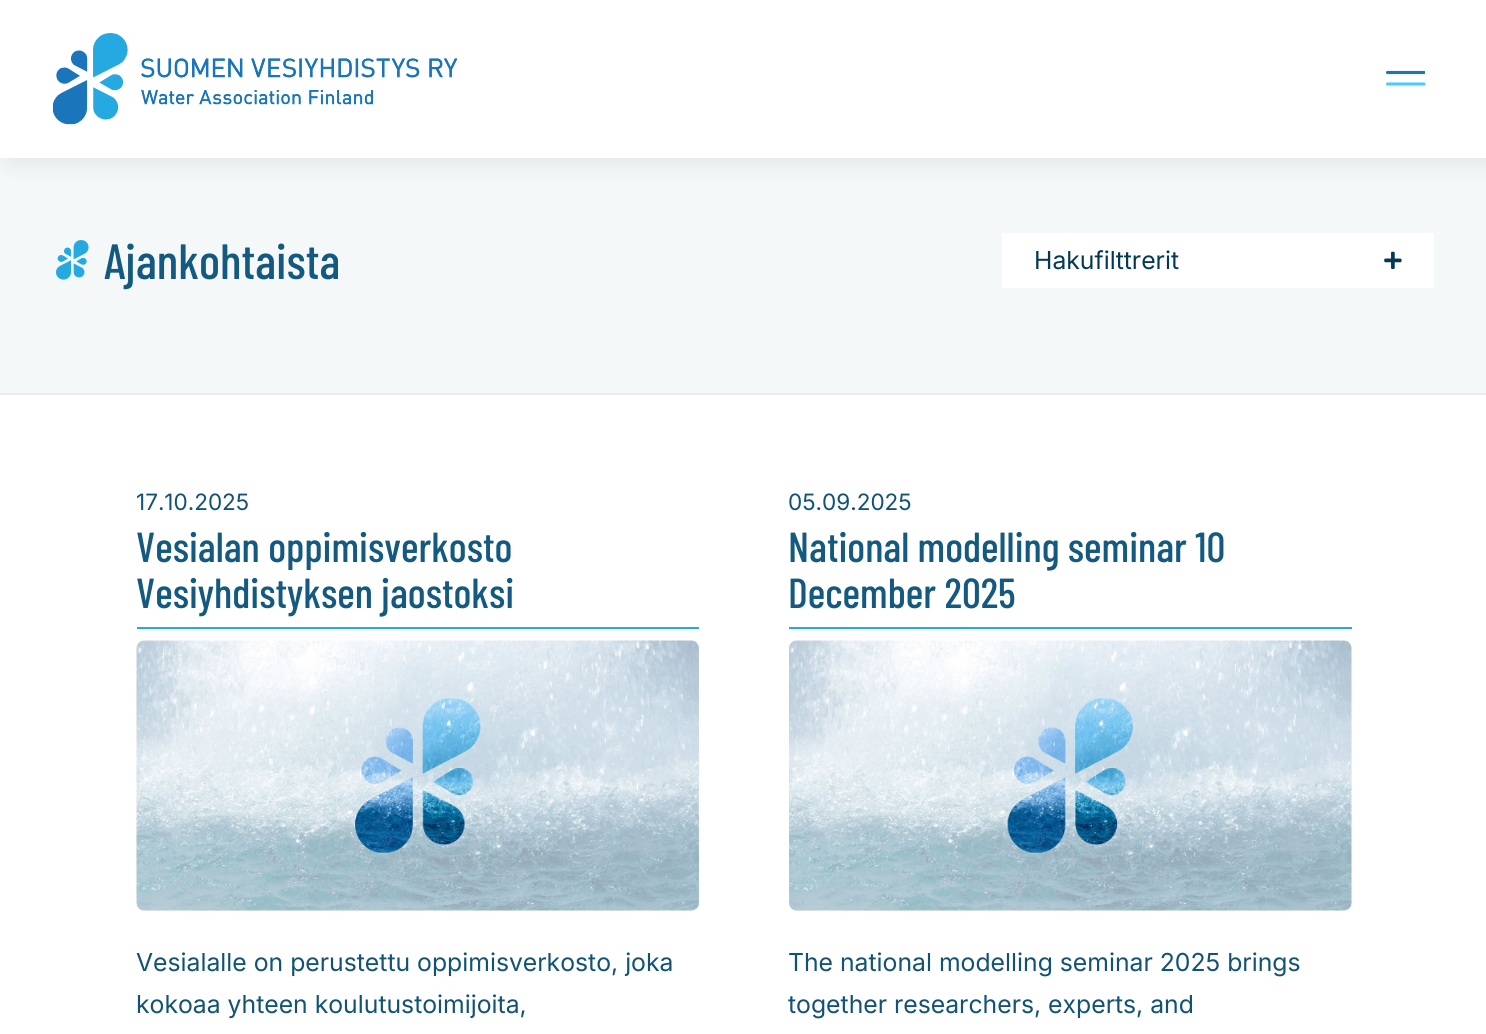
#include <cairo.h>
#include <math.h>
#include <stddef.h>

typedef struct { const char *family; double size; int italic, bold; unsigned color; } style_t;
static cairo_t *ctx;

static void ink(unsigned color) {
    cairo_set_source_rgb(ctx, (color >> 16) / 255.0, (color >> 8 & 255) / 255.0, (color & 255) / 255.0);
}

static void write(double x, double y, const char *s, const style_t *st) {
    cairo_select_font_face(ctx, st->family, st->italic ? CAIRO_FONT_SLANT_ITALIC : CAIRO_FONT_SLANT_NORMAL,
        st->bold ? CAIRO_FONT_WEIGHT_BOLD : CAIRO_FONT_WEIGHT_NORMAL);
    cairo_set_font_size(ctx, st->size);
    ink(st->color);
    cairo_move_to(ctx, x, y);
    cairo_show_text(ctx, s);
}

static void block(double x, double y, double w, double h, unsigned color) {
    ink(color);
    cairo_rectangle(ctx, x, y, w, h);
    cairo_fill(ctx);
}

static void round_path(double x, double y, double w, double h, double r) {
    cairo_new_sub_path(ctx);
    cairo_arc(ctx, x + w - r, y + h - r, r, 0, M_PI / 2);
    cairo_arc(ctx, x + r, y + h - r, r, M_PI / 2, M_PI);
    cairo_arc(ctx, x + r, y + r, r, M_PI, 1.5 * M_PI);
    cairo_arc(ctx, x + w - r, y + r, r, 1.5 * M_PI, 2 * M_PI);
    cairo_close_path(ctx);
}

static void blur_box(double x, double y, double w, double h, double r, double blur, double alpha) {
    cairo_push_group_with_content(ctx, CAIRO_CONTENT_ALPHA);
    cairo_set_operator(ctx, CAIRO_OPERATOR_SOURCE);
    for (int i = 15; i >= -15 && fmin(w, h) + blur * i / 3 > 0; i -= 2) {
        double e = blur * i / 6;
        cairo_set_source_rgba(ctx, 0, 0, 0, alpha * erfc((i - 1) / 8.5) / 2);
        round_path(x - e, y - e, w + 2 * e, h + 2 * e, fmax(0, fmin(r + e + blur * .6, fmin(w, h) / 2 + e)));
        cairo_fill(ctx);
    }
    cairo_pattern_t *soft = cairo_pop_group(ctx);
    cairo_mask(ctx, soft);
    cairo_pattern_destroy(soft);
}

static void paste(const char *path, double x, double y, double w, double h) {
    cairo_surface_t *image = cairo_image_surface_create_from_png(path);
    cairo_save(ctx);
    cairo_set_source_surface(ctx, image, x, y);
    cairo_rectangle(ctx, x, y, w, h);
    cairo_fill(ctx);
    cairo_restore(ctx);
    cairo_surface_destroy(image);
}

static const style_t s1 = {"Barlow Condensed Medium", 49.5, 0, 0, 0x14597f};
static const style_t s2 = {"Inter", 24.75, 0, 0, 0x043956};
static const style_t s3 = {"Inter", 22.5, 0, 0, 0x125375};
static const style_t s4 = {"Barlow Condensed Medium", 42, 0, 0, 0x14597f};
static const style_t s5 = {"Inter", 24.75, 0, 0, 0x125375};

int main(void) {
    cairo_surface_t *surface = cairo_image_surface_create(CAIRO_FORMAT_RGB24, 1486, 1034);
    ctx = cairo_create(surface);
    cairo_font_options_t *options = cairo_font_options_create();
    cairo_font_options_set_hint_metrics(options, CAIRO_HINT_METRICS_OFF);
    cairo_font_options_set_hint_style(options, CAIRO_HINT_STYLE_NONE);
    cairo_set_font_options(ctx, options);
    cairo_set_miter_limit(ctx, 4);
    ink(0xf4f8f9);
    cairo_paint(ctx);
    ink(0x000000);
    blur_box(8, 5, 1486, 157, 0, 13, 0.08);
    block(0, 0, 1486, 158, 0xffffff);
    paste("pic1.png", 53, 33, 405, 92);
    cairo_save(ctx);
    cairo_rectangle(ctx, 1386, 59, 39, 40);
    cairo_clip(ctx);
    cairo_new_path(ctx);
    cairo_move_to(ctx, 1387.5, 72.5);
    cairo_line_to(ctx, 1424, 72.5);
    ink(0x1b75bb);
    cairo_set_line_width(ctx, 3.1);
    cairo_set_line_cap(ctx, CAIRO_LINE_CAP_ROUND);
    cairo_stroke(ctx);
    cairo_restore(ctx);
    cairo_new_path(ctx);
    cairo_move_to(ctx, 1387.5, 84);
    cairo_line_to(ctx, 1424, 84);
    ink(0x47cefc);
    cairo_set_line_width(ctx, 3.1);
    cairo_set_line_cap(ctx, CAIRO_LINE_CAP_ROUND);
    cairo_stroke(ctx);
    paste("pic2.png", 56, 240, 33, 40);
    write(104, 279, "Ajankohtaista", &s1);
    block(1002, 233, 432, 55, 0xffffff);
    write(1034, 269, "Hakufilttrerit", &s2);
    paste("pic3.png", 1384, 251, 18, 19);
    block(0, 393, 1486, 2, 0xe8ebec);
    block(0, 395, 1486, 639, 0xffffff);
    block(137, 627, 562, 2, 0x26a9e0);
    write(136, 510, "17.10.2025", &s3);
    write(136, 562, "Vesialan oppimisverkosto", &s4);
    write(136, 608, "Vesiyhdistyksen jaostoksi", &s4);
    ink(0xf4f8f9);
    round_path(137, 641, 562, 270, 8);
    cairo_fill(ctx);
    paste("pic4.png", 136, 640, 563, 271);
    write(136, 971, "Vesialalle on perustettu oppimisverkosto, joka", &s5);
    write(136, 1013, "kokoaa yhteen koulutustoimijoita,", &s5);
    block(789, 627, 563, 2, 0x26a9e0);
    write(788, 510, "05.09.2025", &s3);
    write(788, 562, "National modelling seminar 10", &s4);
    write(788, 608, "December 2025", &s4);
    ink(0xf4f8f9);
    round_path(789, 641, 563, 270, 8);
    cairo_fill(ctx);
    paste("pic5.png", 789, 640, 563, 271);
    write(788, 971, "The national modelling seminar 2025 brings", &s5);
    write(788, 1013, "together researchers, experts, and", &s5);
    cairo_surface_write_to_png(surface, "screenshot.png");
    cairo_font_options_destroy(options);
    cairo_destroy(ctx);
    cairo_surface_destroy(surface);
    return 0;
}
